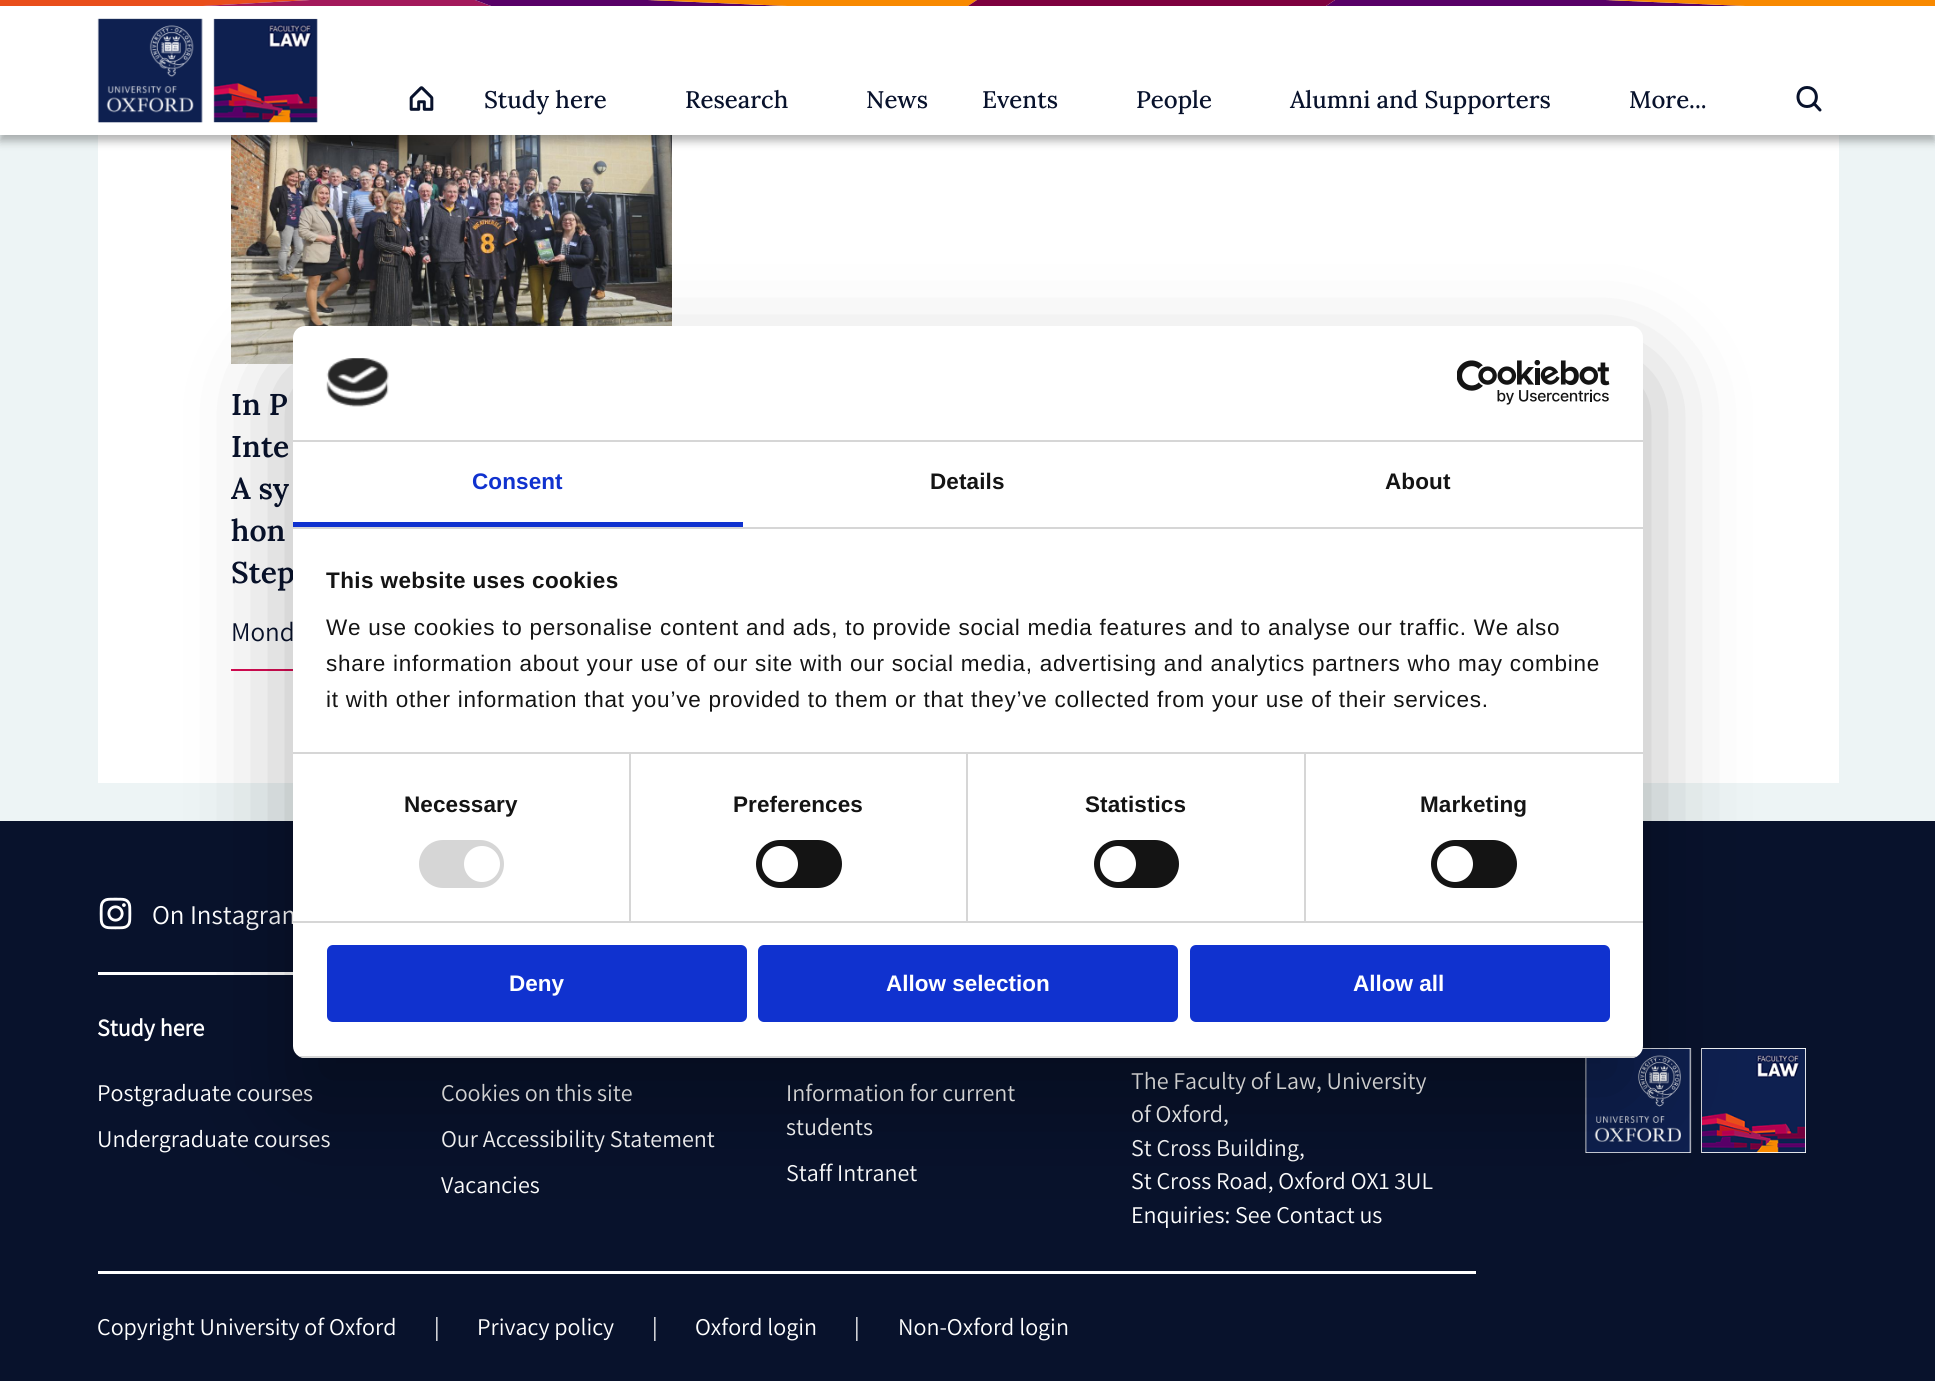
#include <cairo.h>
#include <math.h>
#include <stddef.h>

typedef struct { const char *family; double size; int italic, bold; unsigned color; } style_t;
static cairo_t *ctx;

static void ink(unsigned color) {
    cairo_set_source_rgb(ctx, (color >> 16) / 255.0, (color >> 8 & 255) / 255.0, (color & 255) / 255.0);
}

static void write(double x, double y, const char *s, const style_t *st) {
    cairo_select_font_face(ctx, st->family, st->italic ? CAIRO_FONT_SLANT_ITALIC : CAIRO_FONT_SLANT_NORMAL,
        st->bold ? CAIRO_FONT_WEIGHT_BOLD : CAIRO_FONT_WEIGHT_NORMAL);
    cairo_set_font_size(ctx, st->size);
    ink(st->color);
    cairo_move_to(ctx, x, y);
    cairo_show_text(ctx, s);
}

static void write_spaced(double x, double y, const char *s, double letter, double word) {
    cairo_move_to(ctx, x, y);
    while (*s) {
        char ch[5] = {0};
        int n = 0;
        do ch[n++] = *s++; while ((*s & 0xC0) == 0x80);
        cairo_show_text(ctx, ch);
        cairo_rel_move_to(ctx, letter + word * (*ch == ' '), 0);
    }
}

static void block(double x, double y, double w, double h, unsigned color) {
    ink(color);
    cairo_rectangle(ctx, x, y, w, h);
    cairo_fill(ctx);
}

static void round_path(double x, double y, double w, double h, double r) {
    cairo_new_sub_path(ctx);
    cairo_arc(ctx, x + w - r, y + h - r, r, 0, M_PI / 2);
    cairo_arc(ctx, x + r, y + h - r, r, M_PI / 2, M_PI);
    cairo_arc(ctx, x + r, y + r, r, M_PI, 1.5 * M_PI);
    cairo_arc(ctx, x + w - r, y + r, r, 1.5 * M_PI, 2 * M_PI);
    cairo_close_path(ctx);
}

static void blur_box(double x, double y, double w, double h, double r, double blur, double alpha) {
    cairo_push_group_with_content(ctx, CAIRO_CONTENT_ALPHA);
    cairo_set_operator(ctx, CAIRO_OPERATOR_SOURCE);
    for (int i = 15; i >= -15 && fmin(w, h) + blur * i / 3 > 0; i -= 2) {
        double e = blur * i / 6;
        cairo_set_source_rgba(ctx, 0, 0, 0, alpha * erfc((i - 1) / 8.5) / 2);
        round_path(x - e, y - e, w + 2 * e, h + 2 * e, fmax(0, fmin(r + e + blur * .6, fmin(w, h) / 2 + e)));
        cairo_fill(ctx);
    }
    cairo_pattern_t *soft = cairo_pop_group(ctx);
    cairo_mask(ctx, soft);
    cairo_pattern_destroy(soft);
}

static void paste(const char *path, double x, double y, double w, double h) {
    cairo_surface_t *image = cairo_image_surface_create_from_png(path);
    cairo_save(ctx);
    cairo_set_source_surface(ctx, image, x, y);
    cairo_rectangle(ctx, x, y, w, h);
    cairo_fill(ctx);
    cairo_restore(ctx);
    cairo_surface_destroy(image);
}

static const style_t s1 = {"Lora Medium", 24, 0, 0, 0x08122c};
static const style_t s2 = {"Lora SemiBold", 30, 0, 0, 0x08122c};
static const style_t s3 = {"Assistant ExtraLight", 27, 0, 0, 0x08122c};
static const style_t s4 = {"Assistant ExtraLight", 27, 0, 0, 0xffffff};
static const style_t s5 = {"Assistant", 24, 0, 1, 0xffffff};
static const style_t s6 = {"Assistant ExtraLight", 24, 0, 0, 0xffffff};
static const style_t s7 = {"Liberation Sans", 22.5, 0, 1, 0xffffff};

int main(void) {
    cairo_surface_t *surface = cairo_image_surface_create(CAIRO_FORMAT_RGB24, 1935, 1381);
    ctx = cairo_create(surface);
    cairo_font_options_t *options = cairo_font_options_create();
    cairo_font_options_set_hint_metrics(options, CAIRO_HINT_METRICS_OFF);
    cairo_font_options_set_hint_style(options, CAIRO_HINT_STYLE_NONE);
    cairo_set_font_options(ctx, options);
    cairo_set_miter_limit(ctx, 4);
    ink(0xedf4f5);
    cairo_paint(ctx);
    block(98, 135, 1741, 648, 0xffffff);
    paste("pic3.png", 231, 135, 441, 229);
    ink(0x000000);
    blur_box(0, 6, 1935, 135, 0, 4.5, 0.3);
    block(0, 0, 1935, 135, 0xffffff);
    ink(0xe94e1b);
    cairo_new_path(ctx);
    cairo_move_to(ctx, 202, 6);
    cairo_line_to(ctx, 0, 6);
    cairo_line_to(ctx, 0, 0);
    cairo_line_to(ctx, 310, 0);
    cairo_close_path(ctx);
    cairo_fill(ctx);
    ink(0xa3195b);
    cairo_new_path(ctx);
    cairo_move_to(ctx, 475, 0);
    cairo_line_to(ctx, 310, 0);
    cairo_line_to(ctx, 202, 6);
    cairo_line_to(ctx, 491, 6);
    cairo_close_path(ctx);
    cairo_fill(ctx);
    ink(0x580067);
    cairo_new_path(ctx);
    cairo_move_to(ctx, 647, 0);
    cairo_line_to(ctx, 475, 0);
    cairo_line_to(ctx, 491, 6);
    cairo_line_to(ctx, 787, 6);
    cairo_close_path(ctx);
    cairo_move_to(ctx, 1605, 0);
    cairo_line_to(ctx, 1335, 0);
    cairo_line_to(ctx, 1326, 6);
    cairo_line_to(ctx, 1745, 6);
    cairo_close_path(ctx);
    cairo_fill(ctx);
    ink(0xf88900);
    cairo_new_path(ctx);
    cairo_move_to(ctx, 977, 0);
    cairo_line_to(ctx, 647, 0);
    cairo_line_to(ctx, 787, 6);
    cairo_line_to(ctx, 968, 6);
    cairo_close_path(ctx);
    cairo_move_to(ctx, 1935, 0);
    cairo_line_to(ctx, 1605, 0);
    cairo_line_to(ctx, 1745, 6);
    cairo_line_to(ctx, 1935, 6);
    cairo_close_path(ctx);
    cairo_fill(ctx);
    ink(0x7e003e);
    cairo_new_path(ctx);
    cairo_move_to(ctx, 1335, 0);
    cairo_line_to(ctx, 977, 0);
    cairo_line_to(ctx, 968, 6);
    cairo_line_to(ctx, 1326, 6);
    cairo_close_path(ctx);
    cairo_fill(ctx);
    paste("pic1.png", 97, 18, 221, 105);
    paste("pic2.png", 409, 86, 25, 25);
    write(484, 108, "Study here", &s1);
    write(685, 108, "Research", &s1);
    write(866, 108, "News", &s1);
    write(982, 108, "Events", &s1);
    write(1136, 108, "People", &s1);
    write(1290, 108, "Alumni and Supporters", &s1);
    write(1629, 108, "More...", &s1);
    cairo_new_path(ctx);
    cairo_move_to(ctx, 1807, 106.5);
    cairo_curve_to(ctx, 1819.5, 106.5, 1819.5, 87.5, 1807, 87.5);
    cairo_curve_to(ctx, 1795, 87.5, 1795, 106.5, 1807, 106.5);
    cairo_close_path(ctx);
    cairo_set_line_width(ctx, 3);
    cairo_set_line_join(ctx, CAIRO_LINE_JOIN_ROUND);
    cairo_stroke(ctx);
    cairo_new_path(ctx);
    cairo_move_to(ctx, 1814, 103.5);
    cairo_line_to(ctx, 1820, 110);
    cairo_set_line_cap(ctx, CAIRO_LINE_CAP_ROUND);
    cairo_stroke(ctx);
    block(231, 669, 62, 2, 0xd60b52);
    write(231, 415, "In P", &s2);
    write(231, 457, "Inte", &s2);
    write(231, 499, "A sy", &s2);
    write(231, 541, "hon", &s2);
    write(231, 583, "Step", &s2);
    write(231, 641, "Mond", &s3);
    block(0, 821, 1935, 560, 0x08122c);
    block(98, 972, 195, 3, 0xffffff);
    paste("pic4.png", 99, 897, 33, 33);
    write(152, 924, "On Instagram", &s4);
    block(98, 1271, 1378, 3, 0xffffff);
    write(97, 1036, "Study here", &s5);
    write(97, 1101, "Postgraduate courses", &s6);
    write(97, 1147, "Undergraduate courses", &s6);
    write(441, 1101, "Cookies on this site", &s6);
    write(441, 1147, "Our Accessibility Statement", &s6);
    write(441, 1193, "Vacancies", &s6);
    write(786, 1101, "Information for current", &s6);
    write(786, 1135, "students", &s6);
    write(786, 1181, "Staff Intranet", &s6);
    write(1131, 1089, "The Faculty of Law, University", &s6);
    write(1131, 1122, "of Oxford,", &s6);
    write(1131, 1156, "St Cross Building,", &s6);
    write(1131, 1189, "St Cross Road, Oxford OX1 3UL", &s6);
    write(1131, 1223, "Enquiries: See Contact us", &s6);
    write(97, 1335, "Copyright University of Oxford", &s6);
    write(434, 1335, "|", &s6);
    write(477, 1335, "Privacy policy", &s6);
    write(652, 1335, "|", &s6);
    write(695, 1335, "Oxford login", &s6);
    write(854, 1335, "|", &s6);
    write(898, 1335, "Non-Oxford login", &s6);
    paste("pic5.png", 1585, 1048, 221, 105);
    ink(0x000000);
    blur_box(293, 374, 1350, 732, 12, 51, 0.3);
    ink(0xffffff);
    round_path(293, 326, 1350, 732, 12);
    cairo_fill(ctx);
    block(293, 440, 1350, 2, 0xd6d6d6);
    paste("pic6.png", 326, 358, 63, 49);
    paste("pic7.png", 1457, 360, 153, 45);
    block(293, 527, 1350, 2, 0xd6d6d6);
    block(293, 522, 450, 5, 0x1032cf);
    cairo_select_font_face(ctx, "Liberation Sans", CAIRO_FONT_SLANT_NORMAL, CAIRO_FONT_WEIGHT_BOLD);
    cairo_set_font_size(ctx, 22.5);
    write_spaced(472, 489, "Consent", 0.1, 0);
    ink(0x141414);
    write_spaced(930, 489, "Details", 0.1, 0);
    write_spaced(1385, 489, "About", 0.1, 0);
    block(629, 753, 2, 168, 0xd6d6d6);
    block(966, 753, 2, 168, 0xd6d6d6);
    block(1304, 753, 2, 168, 0xd6d6d6);
    block(293, 752, 1350, 2, 0xd6d6d6);
    ink(0x141414);
    write_spaced(326, 588, "This website uses cookies", 0.4, 0);
    cairo_select_font_face(ctx, "Liberation Sans", CAIRO_FONT_SLANT_NORMAL, CAIRO_FONT_WEIGHT_NORMAL);
    write_spaced(326, 635, "We use cookies to personalise content and ads, to provide social media features and to analyse our traffic. We also", 0.75, 0);
    write_spaced(326, 671, "share information about your use of our site with our social media, advertising and analytics partners who may combine", 0.75, 0);
    write_spaced(326, 707, "it with other information that you’ve provided to them or that they’ve collected from your use of their services.", 0.75, 0);
    block(293, 921, 1350, 2, 0xd6d6d6);
    cairo_select_font_face(ctx, "Liberation Sans", CAIRO_FONT_SLANT_NORMAL, CAIRO_FONT_WEIGHT_BOLD);
    ink(0x141414);
    write_spaced(404, 812, "Necessary", 0.1, 0);
    ink(0xd6d6d6);
    round_path(419, 840, 85, 48, 24);
    cairo_fill(ctx);
    ink(0xffffff);
    cairo_arc(ctx, 482, 864, 18, 0, 2 * M_PI);
    cairo_fill(ctx);
    ink(0x141414);
    write_spaced(733, 812, "Preferences", 0.1, 0);
    round_path(756, 840, 86, 48, 24);
    cairo_fill(ctx);
    ink(0xffffff);
    cairo_arc(ctx, 780, 864, 18, 0, 2 * M_PI);
    cairo_fill(ctx);
    ink(0x141414);
    write_spaced(1085, 812, "Statistics", 0.1, 0);
    round_path(1094, 840, 85, 48, 24);
    cairo_fill(ctx);
    ink(0xffffff);
    cairo_arc(ctx, 1118, 864, 18, 0, 2 * M_PI);
    cairo_fill(ctx);
    ink(0x141414);
    write_spaced(1420, 812, "Marketing", 0.1, 0);
    round_path(1431, 840, 86, 48, 24);
    cairo_fill(ctx);
    ink(0xffffff);
    cairo_arc(ctx, 1455, 864, 18, 0, 2 * M_PI);
    cairo_fill(ctx);
    cairo_save(ctx);
    round_path(293, 326, 1350, 732, 12);
    cairo_clip(ctx);
    block(293, 1056, 1350, 2, 0xd6d6d6);
    cairo_restore(ctx);
    ink(0x1032cf);
    round_path(328.5, 946.5, 417, 74, 4.5);
    cairo_fill_preserve(ctx);
    cairo_set_line_cap(ctx, CAIRO_LINE_CAP_BUTT);
    cairo_set_line_join(ctx, CAIRO_LINE_JOIN_MITER);
    cairo_stroke(ctx);
    write(509, 991, "Deny", &s7);
    ink(0x1032cf);
    round_path(759.5, 946.5, 417, 74, 4.5);
    cairo_fill_preserve(ctx);
    cairo_stroke(ctx);
    write(886, 991, "Allow selection", &s7);
    ink(0x1032cf);
    round_path(1191.5, 946.5, 417, 74, 4.5);
    cairo_fill_preserve(ctx);
    cairo_stroke(ctx);
    write(1353, 991, "Allow all", &s7);
    cairo_surface_write_to_png(surface, "screenshot.png");
    cairo_font_options_destroy(options);
    cairo_destroy(ctx);
    cairo_surface_destroy(surface);
    return 0;
}
